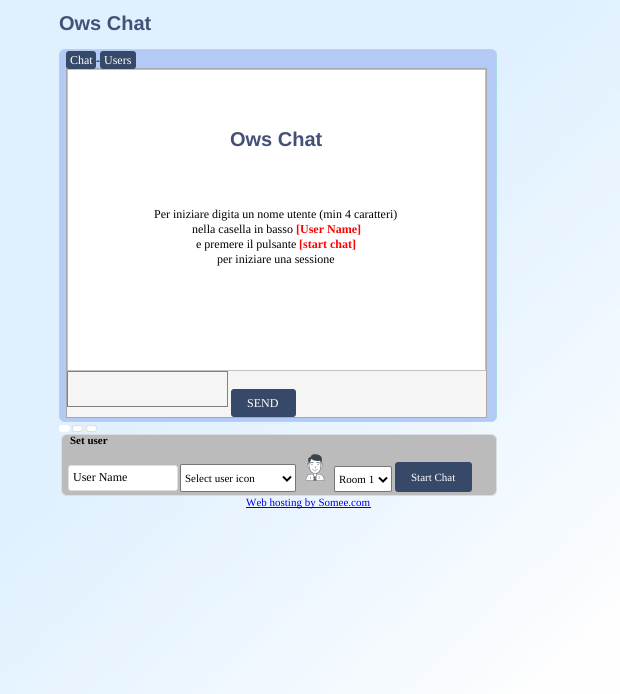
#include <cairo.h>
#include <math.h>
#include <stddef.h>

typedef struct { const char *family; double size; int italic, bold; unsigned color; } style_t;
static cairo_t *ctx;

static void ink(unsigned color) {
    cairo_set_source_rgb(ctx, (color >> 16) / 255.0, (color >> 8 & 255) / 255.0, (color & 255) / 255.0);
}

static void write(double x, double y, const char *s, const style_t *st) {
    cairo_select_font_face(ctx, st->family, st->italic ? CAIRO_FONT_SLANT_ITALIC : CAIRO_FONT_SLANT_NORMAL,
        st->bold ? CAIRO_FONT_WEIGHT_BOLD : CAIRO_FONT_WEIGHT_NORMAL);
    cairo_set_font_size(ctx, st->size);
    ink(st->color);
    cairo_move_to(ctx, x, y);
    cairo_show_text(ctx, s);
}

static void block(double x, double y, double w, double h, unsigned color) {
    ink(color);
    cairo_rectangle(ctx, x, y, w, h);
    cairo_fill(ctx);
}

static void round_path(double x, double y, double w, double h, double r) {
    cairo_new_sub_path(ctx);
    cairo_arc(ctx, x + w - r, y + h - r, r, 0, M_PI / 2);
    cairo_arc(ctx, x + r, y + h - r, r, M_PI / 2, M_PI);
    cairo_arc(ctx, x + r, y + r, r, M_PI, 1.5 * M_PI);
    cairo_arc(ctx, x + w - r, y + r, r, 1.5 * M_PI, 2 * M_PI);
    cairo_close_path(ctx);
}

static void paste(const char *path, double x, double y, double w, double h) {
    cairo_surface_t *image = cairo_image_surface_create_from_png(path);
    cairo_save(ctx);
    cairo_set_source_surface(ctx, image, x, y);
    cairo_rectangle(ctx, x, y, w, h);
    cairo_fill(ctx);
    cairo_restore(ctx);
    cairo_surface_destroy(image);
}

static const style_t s1 = {"Liberation Sans", 20, 0, 1, 0x435178};
static const style_t s2 = {"Liberation Serif", 12, 0, 0, 0xffffff};
static const style_t s3 = {"Liberation Serif", 12, 0, 0, 0x000000};
static const style_t s4 = {"Liberation Serif", 12, 0, 1, 0xff0000};
static const style_t s5 = {"Liberation Serif", 11, 0, 1, 0x000000};
static const style_t s6 = {"Liberation Serif", 11, 0, 0, 0x000000};
static const style_t s7 = {"Liberation Serif", 11, 0, 0, 0xffffff};
static const style_t s8 = {"Liberation Serif", 11, 0, 0, 0x0000ee};

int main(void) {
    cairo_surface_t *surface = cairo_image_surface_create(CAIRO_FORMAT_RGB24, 620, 694);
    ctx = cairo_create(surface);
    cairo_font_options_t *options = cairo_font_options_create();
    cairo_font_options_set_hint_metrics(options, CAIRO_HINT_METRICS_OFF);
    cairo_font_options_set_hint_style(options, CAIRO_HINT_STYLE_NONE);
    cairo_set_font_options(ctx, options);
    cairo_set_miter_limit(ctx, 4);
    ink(0xffffff);
    cairo_paint(ctx);
    paste("pic1.png", 0, 0, 620, 694);
    write(59, 30, "Ows Chat", &s1);
    ink(0xb3c9f6);
    round_path(59.5, 49.5, 437, 372, 5.5);
    cairo_fill_preserve(ctx);
    ink(0xadd8e6);
    cairo_set_line_width(ctx, 1);
    cairo_stroke(ctx);
    block(67, 371, 419, 46, 0xf5f5f5);
    cairo_rectangle(ctx, 66.5, 68.5, 420, 349);
    ink(0xa9a9a9);
    cairo_stroke(ctx);
    ink(0x374968);
    round_path(66.5, 51.5, 29, 17, 2.5);
    cairo_fill_preserve(ctx);
    cairo_stroke(ctx);
    write(70, 64, "Chat", &s2);
    write(96, 64, "-", &s3);
    ink(0x374968);
    round_path(100.5, 51.5, 35, 17, 2.5);
    cairo_fill_preserve(ctx);
    cairo_stroke(ctx);
    write(104, 64, "Users", &s2);
    cairo_rectangle(ctx, 67.5, 69.5, 418, 301);
    cairo_fill_preserve(ctx);
    ink(0xc0c0c0);
    cairo_stroke(ctx);
    write(230, 146, "Ows Chat", &s1);
    write(154, 218, "Per iniziare digita un nome utente (min 4 caratteri)", &s3);
    write(192, 233, "nella casella in basso", &s3);
    write(296, 233, "[User Name]", &s4);
    write(196, 248, "e premere il pulsante", &s3);
    write(299, 248, "[start chat]", &s4);
    write(217, 263, "per iniziare una sessione", &s3);
    cairo_rectangle(ctx, 67.5, 371.5, 160, 35);
    ink(0x808080);
    cairo_stroke(ctx);
    ink(0x374968);
    round_path(231.5, 389.5, 64, 27, 2.5);
    cairo_fill_preserve(ctx);
    cairo_stroke(ctx);
    write(247, 407, "SEND", &s2);
    round_path(59.5, 425.5, 10, 6, 2.5);
    cairo_fill_preserve(ctx);
    cairo_stroke(ctx);
    round_path(72.5, 425.5, 10, 6, 2.5);
    cairo_fill_preserve(ctx);
    ink(0xdedede);
    cairo_stroke(ctx);
    ink(0xffffff);
    round_path(86.5, 425.5, 10, 6, 2.5);
    cairo_fill_preserve(ctx);
    ink(0xdedede);
    cairo_stroke(ctx);
    ink(0xbbbbbb);
    round_path(61.5, 434.5, 435, 61, 5.5);
    cairo_fill_preserve(ctx);
    ink(0xdddddd);
    cairo_stroke(ctx);
    write(70, 444, "Set user", &s5);
    ink(0xffffff);
    round_path(68.5, 465.5, 109, 25, 2.5);
    cairo_fill_preserve(ctx);
    ink(0xdedede);
    cairo_stroke(ctx);
    write(73, 481, "User Name", &s3);
    ink(0xffffff);
    round_path(180.5, 464.5, 115, 27, 1.5);
    cairo_fill_preserve(ctx);
    ink(0x767676);
    cairo_stroke(ctx);
    cairo_new_path(ctx);
    cairo_move_to(ctx, 283, 476.5);
    cairo_line_to(ctx, 287, 480.5);
    cairo_line_to(ctx, 291, 476.5);
    ink(0x000000);
    cairo_set_line_width(ctx, 2);
    cairo_stroke(ctx);
    write(185, 482, "Select user icon", &s6);
    paste("pic2.png", 305, 454, 20, 27);
    ink(0xffffff);
    round_path(334.5, 466.5, 57, 25, 1.5);
    cairo_fill_preserve(ctx);
    ink(0x767676);
    cairo_set_line_width(ctx, 1);
    cairo_stroke(ctx);
    cairo_new_path(ctx);
    cairo_move_to(ctx, 379, 477.5);
    cairo_line_to(ctx, 383, 481.5);
    cairo_line_to(ctx, 387, 477.5);
    ink(0x000000);
    cairo_set_line_width(ctx, 2);
    cairo_stroke(ctx);
    write(339, 483, "Room 1", &s6);
    ink(0x374968);
    round_path(395.5, 462.5, 76, 29, 2.5);
    cairo_fill_preserve(ctx);
    cairo_set_line_width(ctx, 1);
    cairo_stroke(ctx);
    write(411, 481, "Start Chat", &s7);
    block(246, 507, 125, 1, 0x0000ee);
    write(246, 506, "Web hosting by Somee.com", &s8);
    cairo_surface_write_to_png(surface, "screenshot.png");
    cairo_font_options_destroy(options);
    cairo_destroy(ctx);
    cairo_surface_destroy(surface);
    return 0;
}
